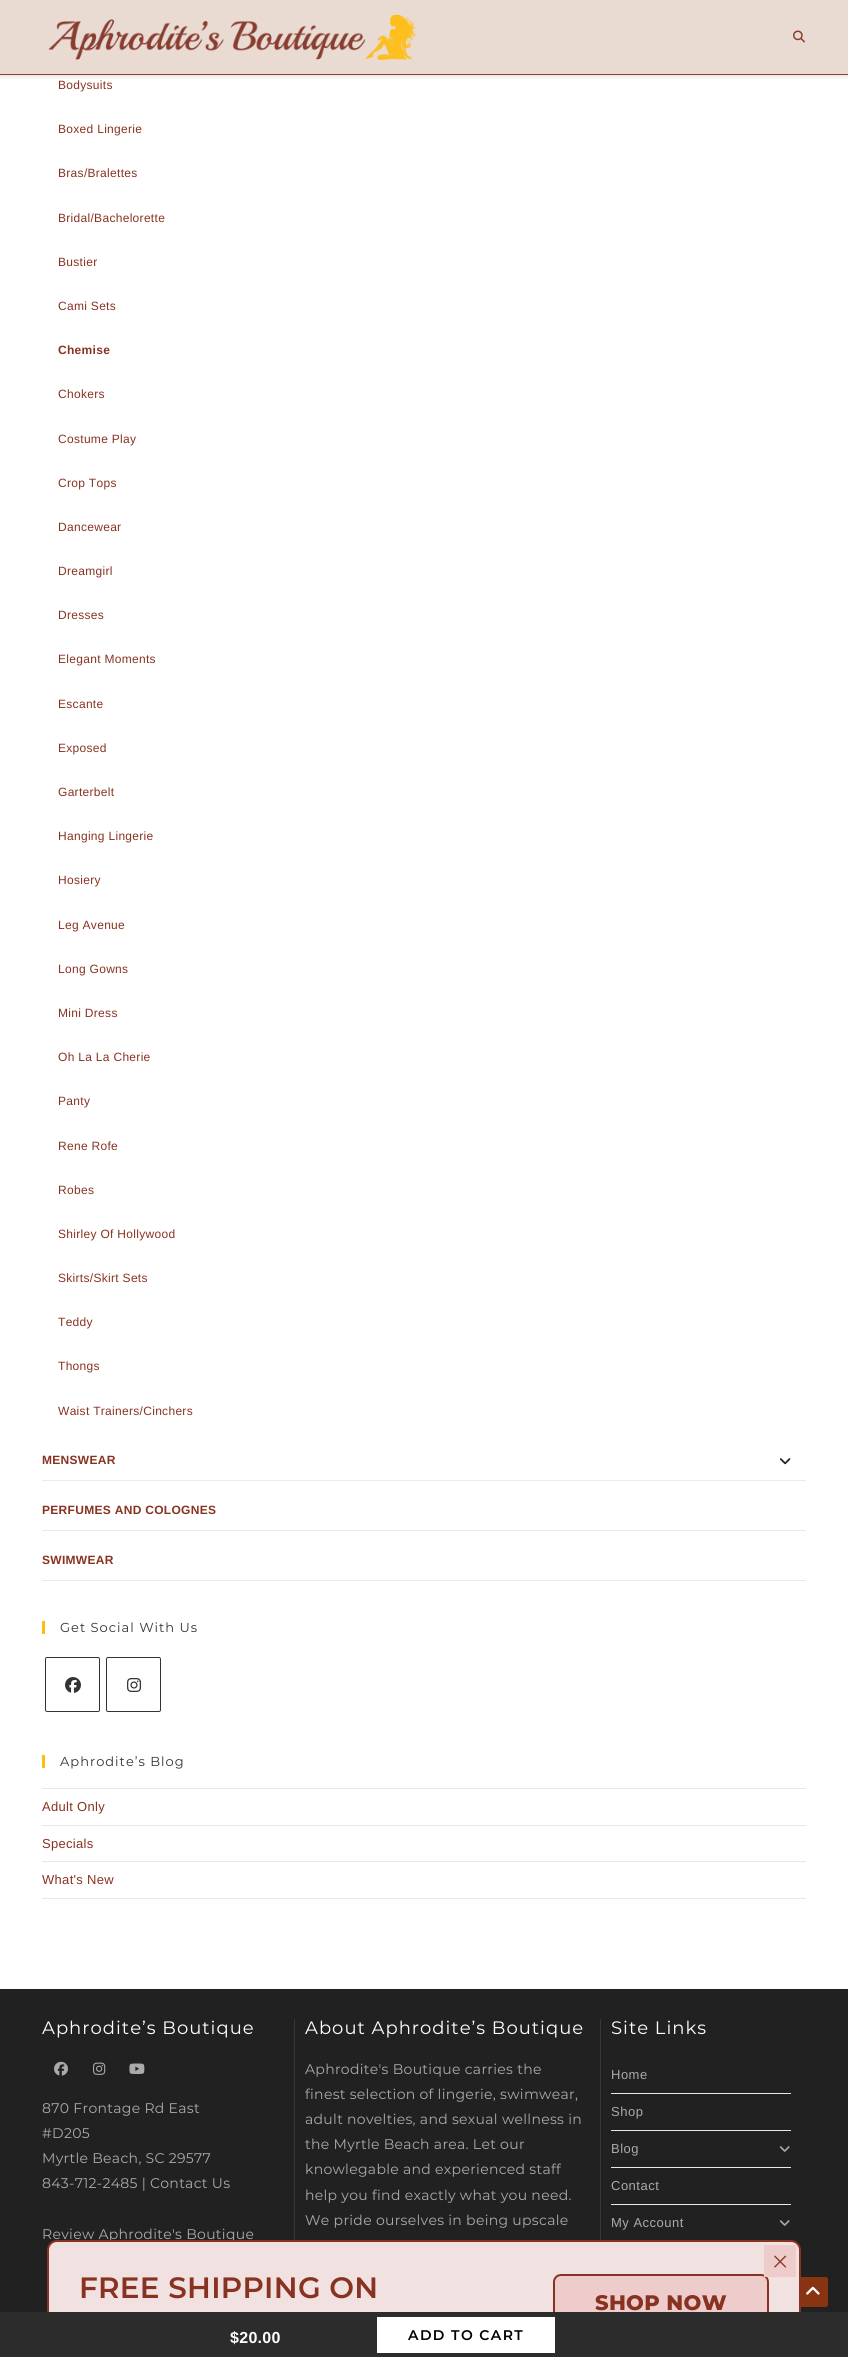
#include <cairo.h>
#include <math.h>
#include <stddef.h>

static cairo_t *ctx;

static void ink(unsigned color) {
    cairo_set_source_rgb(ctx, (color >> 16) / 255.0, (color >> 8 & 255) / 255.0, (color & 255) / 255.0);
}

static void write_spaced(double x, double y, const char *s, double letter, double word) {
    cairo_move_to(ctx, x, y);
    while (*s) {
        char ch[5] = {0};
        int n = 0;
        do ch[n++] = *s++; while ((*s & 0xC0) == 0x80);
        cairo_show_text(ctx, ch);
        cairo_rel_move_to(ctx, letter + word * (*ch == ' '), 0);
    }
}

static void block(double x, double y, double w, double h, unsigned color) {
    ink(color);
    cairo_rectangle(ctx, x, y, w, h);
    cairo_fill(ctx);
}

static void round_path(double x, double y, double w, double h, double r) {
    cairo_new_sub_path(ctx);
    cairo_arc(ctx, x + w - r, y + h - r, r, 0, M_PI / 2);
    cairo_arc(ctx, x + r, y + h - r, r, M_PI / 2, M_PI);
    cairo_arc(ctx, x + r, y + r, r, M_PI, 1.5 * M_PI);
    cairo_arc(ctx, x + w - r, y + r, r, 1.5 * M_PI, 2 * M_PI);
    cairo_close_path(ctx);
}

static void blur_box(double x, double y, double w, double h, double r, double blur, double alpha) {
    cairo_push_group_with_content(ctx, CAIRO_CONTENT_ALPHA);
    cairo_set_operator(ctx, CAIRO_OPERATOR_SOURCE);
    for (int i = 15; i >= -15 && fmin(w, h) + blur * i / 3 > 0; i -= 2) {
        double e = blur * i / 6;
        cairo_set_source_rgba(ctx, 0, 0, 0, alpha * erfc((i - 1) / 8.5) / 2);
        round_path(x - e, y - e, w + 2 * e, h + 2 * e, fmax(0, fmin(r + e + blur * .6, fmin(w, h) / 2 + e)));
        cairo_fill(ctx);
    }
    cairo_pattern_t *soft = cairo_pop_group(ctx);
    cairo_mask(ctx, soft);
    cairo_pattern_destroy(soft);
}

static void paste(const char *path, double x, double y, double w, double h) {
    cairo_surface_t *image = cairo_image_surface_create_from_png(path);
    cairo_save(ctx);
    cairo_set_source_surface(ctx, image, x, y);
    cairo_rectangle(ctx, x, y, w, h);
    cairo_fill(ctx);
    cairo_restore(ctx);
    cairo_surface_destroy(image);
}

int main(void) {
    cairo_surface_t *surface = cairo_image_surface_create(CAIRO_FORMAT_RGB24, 848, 2357);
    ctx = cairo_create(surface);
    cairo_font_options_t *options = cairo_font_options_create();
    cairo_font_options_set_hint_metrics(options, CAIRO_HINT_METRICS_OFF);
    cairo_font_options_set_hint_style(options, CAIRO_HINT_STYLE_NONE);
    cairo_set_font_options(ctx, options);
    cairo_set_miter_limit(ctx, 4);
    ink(0xffffff);
    cairo_paint(ctx);
    block(0, 0, 848, 74, 0xe9dad2);
    cairo_save(ctx);
    cairo_rectangle(ctx, 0, 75, 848, 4);
    cairo_clip(ctx);
    ink(0x000000);
    blur_box(0, 2, 848, 75, 0, 2.5, 0.1);
    cairo_restore(ctx);
    block(0, 74, 848, 1, 0x8e3d2d);
    paste("pic1.png", 48, 14, 368, 46);
    paste("pic2.png", 793, 30, 12, 13);
    cairo_select_font_face(ctx, "Liberation Sans", CAIRO_FONT_SLANT_NORMAL, CAIRO_FONT_WEIGHT_NORMAL);
    cairo_set_font_size(ctx, 12);
    ink(0x883322);
    write_spaced(58, 89, "Bodysuits", 0.3, 0);
    write_spaced(58, 133, "Boxed Lingerie", 0.3, 0);
    write_spaced(58, 177, "Bras/Bralettes", 0.3, 0);
    write_spaced(58, 222, "Bridal/Bachelorette", 0.3, 0);
    write_spaced(58, 266, "Bustier", 0.3, 0);
    write_spaced(58, 310, "Cami Sets", 0.3, 0);
    cairo_select_font_face(ctx, "Liberation Sans", CAIRO_FONT_SLANT_NORMAL, CAIRO_FONT_WEIGHT_BOLD);
    write_spaced(58, 354, "Chemise", 0.3, 0);
    cairo_select_font_face(ctx, "Liberation Sans", CAIRO_FONT_SLANT_NORMAL, CAIRO_FONT_WEIGHT_NORMAL);
    write_spaced(58, 398, "Chokers", 0.3, 0);
    write_spaced(58, 443, "Costume Play", 0.3, 0);
    write_spaced(58, 487, "Crop Tops", 0.3, 0);
    write_spaced(58, 531, "Dancewear", 0.3, 0);
    write_spaced(58, 575, "Dreamgirl", 0.3, 0);
    write_spaced(58, 619, "Dresses", 0.3, 0);
    write_spaced(58, 663, "Elegant Moments", 0.3, 0);
    write_spaced(58, 708, "Escante", 0.3, 0);
    write_spaced(58, 752, "Exposed", 0.3, 0);
    write_spaced(58, 796, "Garterbelt", 0.3, 0);
    write_spaced(58, 840, "Hanging Lingerie", 0.3, 0);
    write_spaced(58, 884, "Hosiery", 0.3, 0);
    write_spaced(58, 929, "Leg Avenue", 0.3, 0);
    write_spaced(58, 973, "Long Gowns", 0.3, 0);
    write_spaced(58, 1017, "Mini Dress", 0.3, 0);
    write_spaced(58, 1061, "Oh La La Cherie", 0.3, 0);
    write_spaced(58, 1105, "Panty", 0.3, 0);
    write_spaced(58, 1150, "Rene Rofe", 0.3, 0);
    write_spaced(58, 1194, "Robes", 0.3, 0);
    write_spaced(58, 1238, "Shirley Of Hollywood", 0.3, 0);
    write_spaced(58, 1282, "Skirts/Skirt Sets", 0.3, 0);
    write_spaced(58, 1326, "Teddy", 0.3, 0);
    write_spaced(58, 1370, "Thongs", 0.3, 0);
    write_spaced(58, 1415, "Waist Trainers/Cinchers", 0.3, 0);
    block(42, 1480, 764, 1, 0xeaeaea);
    cairo_select_font_face(ctx, "Liberation Sans", CAIRO_FONT_SLANT_NORMAL, CAIRO_FONT_WEIGHT_BOLD);
    ink(0x883322);
    write_spaced(42, 1464, "MENSWEAR", 0.3, 0);
    paste("pic3.png", 780, 1458, 11, 7);
    block(42, 1530, 764, 1, 0xeaeaea);
    ink(0x883322);
    write_spaced(42, 1514, "PERFUMES AND COLOGNES", 0.3, 0);
    block(42, 1580, 764, 1, 0xeaeaea);
    ink(0x883322);
    write_spaced(42, 1564, "SWIMWEAR", 0.3, 0);
    block(42, 1621, 3, 13, 0xfdbe13);
    cairo_select_font_face(ctx, "Montserrat", CAIRO_FONT_SLANT_NORMAL, CAIRO_FONT_WEIGHT_NORMAL);
    cairo_set_font_size(ctx, 13);
    ink(0x333333);
    write_spaced(60, 1632, "Get Social With Us", 1, 0);
    round_path(45.5, 1657.5, 54, 54, 1.5);
    cairo_set_line_width(ctx, 1);
    cairo_stroke(ctx);
    paste("pic4.png", 65, 1677, 16, 16);
    round_path(106.5, 1657.5, 54, 54, 1.5);
    cairo_stroke(ctx);
    paste("pic5.png", 127, 1678, 14, 14);
    block(42, 1755, 3, 13, 0xfdbe13);
    ink(0x333333);
    write_spaced(60, 1766, "Aphrodite’s Blog", 1, 0);
    block(42, 1788, 764, 1, 0xe9e9e9);
    block(42, 1825, 764, 1, 0xe9e9e9);
    cairo_select_font_face(ctx, "Liberation Sans", CAIRO_FONT_SLANT_NORMAL, CAIRO_FONT_WEIGHT_NORMAL);
    ink(0x883322);
    write_spaced(42, 1811, "Adult Only", 0.3, 0);
    block(42, 1861, 764, 1, 0xe9e9e9);
    ink(0x883322);
    write_spaced(42, 1848, "Specials", 0.3, 0);
    block(42, 1898, 764, 1, 0xe9e9e9);
    ink(0x883322);
    write_spaced(42, 1884, "What's New", 0.3, 0);
    block(0, 1989, 848, 323, 0x212121);
    cairo_select_font_face(ctx, "Montserrat", CAIRO_FONT_SLANT_NORMAL, CAIRO_FONT_WEIGHT_NORMAL);
    cairo_set_font_size(ctx, 18);
    ink(0xffffff);
    write_spaced(42, 2034, "Aphrodite’s Boutique", 1, 0);
    paste("pic6.png", 54, 2061, 14, 15);
    paste("pic7.png", 93, 2062, 13, 13);
    paste("pic8.png", 129, 2063, 16, 11);
    cairo_set_font_size(ctx, 14);
    ink(0xaaaaaa);
    write_spaced(42, 2113, "870 Frontage Rd East", 0.3, 0);
    write_spaced(42, 2138, "#D205", 0.3, 0);
    write_spaced(42, 2163, "Myrtle Beach, SC 29577", 0.3, 0);
    write_spaced(42, 2188, "843-712-2485 | Contact Us", 0.3, 0);
    write_spaced(42, 2239, "Review Aphrodite's Boutique", 0.3, 0);
    block(294, 2019, 1, 221, 0x373737);
    cairo_set_font_size(ctx, 18);
    ink(0xffffff);
    write_spaced(305, 2034, "About Aphrodite’s Boutique", 1, 0);
    cairo_set_font_size(ctx, 14);
    ink(0xaaaaaa);
    write_spaced(305, 2074, "Aphrodite's Boutique carries the", 0.3, 0);
    write_spaced(305, 2099, "finest selection of lingerie, swimwear,", 0.3, 0);
    write_spaced(305, 2124, "adult novelties, and sexual wellness in", 0.3, 0);
    write_spaced(305, 2149, "the Myrtle Beach area. Let our", 0.3, 0);
    write_spaced(305, 2174, "knowlegable and experienced staff", 0.3, 0);
    write_spaced(305, 2200, "help you find exactly what you need.", 0.3, 0);
    write_spaced(305, 2225, "We pride ourselves in being upscale", 0.3, 0);
    block(600, 2019, 1, 223, 0x373737);
    cairo_set_font_size(ctx, 18);
    ink(0xffffff);
    write_spaced(611, 2034, "Site Links", 1, 0);
    block(611, 2093, 180, 1, 0xe9e9e9);
    cairo_select_font_face(ctx, "Liberation Sans", CAIRO_FONT_SLANT_NORMAL, CAIRO_FONT_WEIGHT_NORMAL);
    cairo_set_font_size(ctx, 13);
    ink(0xaaaaaa);
    write_spaced(611, 2079, "Home", 0.5, 0);
    block(611, 2130, 180, 1, 0xe9e9e9);
    ink(0xaaaaaa);
    write_spaced(611, 2116, "Shop", 0.5, 0);
    block(611, 2167, 180, 1, 0xe9e9e9);
    ink(0xaaaaaa);
    write_spaced(611, 2153, "Blog", 0.5, 0);
    paste("pic9.png", 779, 2146, 11, 6);
    block(611, 2204, 180, 1, 0xe9e9e9);
    ink(0xaaaaaa);
    write_spaced(611, 2190, "Contact", 0.5, 0);
    write_spaced(611, 2227, "My Account", 0.5, 0);
    paste("pic9.png", 779, 2220, 11, 6);
    ink(0x883311);
    round_path(798, 2277, 30, 30, 2);
    cairo_fill(ctx);
    ink(0xfcd6d6);
    round_path(48, 2241, 752, 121, 9);
    cairo_fill_preserve(ctx);
    ink(0x883322);
    cairo_set_line_width(ctx, 2);
    cairo_stroke(ctx);
    cairo_set_source_rgba(ctx, 0.914, 0.914, 0.914, 0.57);
    round_path(49, 2242, 750, 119, 10);
    cairo_fill(ctx);
    ink(0xeecccc);
    round_path(554, 2275, 214, 53, 7);
    cairo_fill_preserve(ctx);
    ink(0x883322);
    cairo_stroke(ctx);
    block(0, 2312, 848, 45, 0x2c2c2c);
    cairo_select_font_face(ctx, "Liberation Sans", CAIRO_FONT_SLANT_NORMAL, CAIRO_FONT_WEIGHT_BOLD);
    cairo_set_font_size(ctx, 16);
    ink(0xffffff);
    write_spaced(230, 2343, "$20.00", 0.3, 0);
    block(377, 2317, 178, 36, 0xffffff);
    cairo_select_font_face(ctx, "Montserrat SemiBold", CAIRO_FONT_SLANT_NORMAL, CAIRO_FONT_WEIGHT_NORMAL);
    cairo_set_font_size(ctx, 14);
    ink(0x000000);
    write_spaced(408, 2340, "ADD TO CART", 1.4, 0);
    block(764, 2245, 32, 32, 0xeecccc);
    paste("pic10.png", 774, 2255, 13, 13);
    cairo_set_font_size(ctx, 29.4);
    ink(0x883322);
    write_spaced(79, 2298, "FREE SHIPPING ON", 0.3, 0);
    cairo_select_font_face(ctx, "Montserrat ExtraBold", CAIRO_FONT_SLANT_NORMAL, CAIRO_FONT_WEIGHT_NORMAL);
    cairo_set_font_size(ctx, 21);
    write_spaced(595, 2310, "SHOP NOW", 0.3, 0);
    paste("pic11.png", 806, 2286, 14, 9);
    cairo_surface_write_to_png(surface, "screenshot.png");
    cairo_font_options_destroy(options);
    cairo_destroy(ctx);
    cairo_surface_destroy(surface);
    return 0;
}
